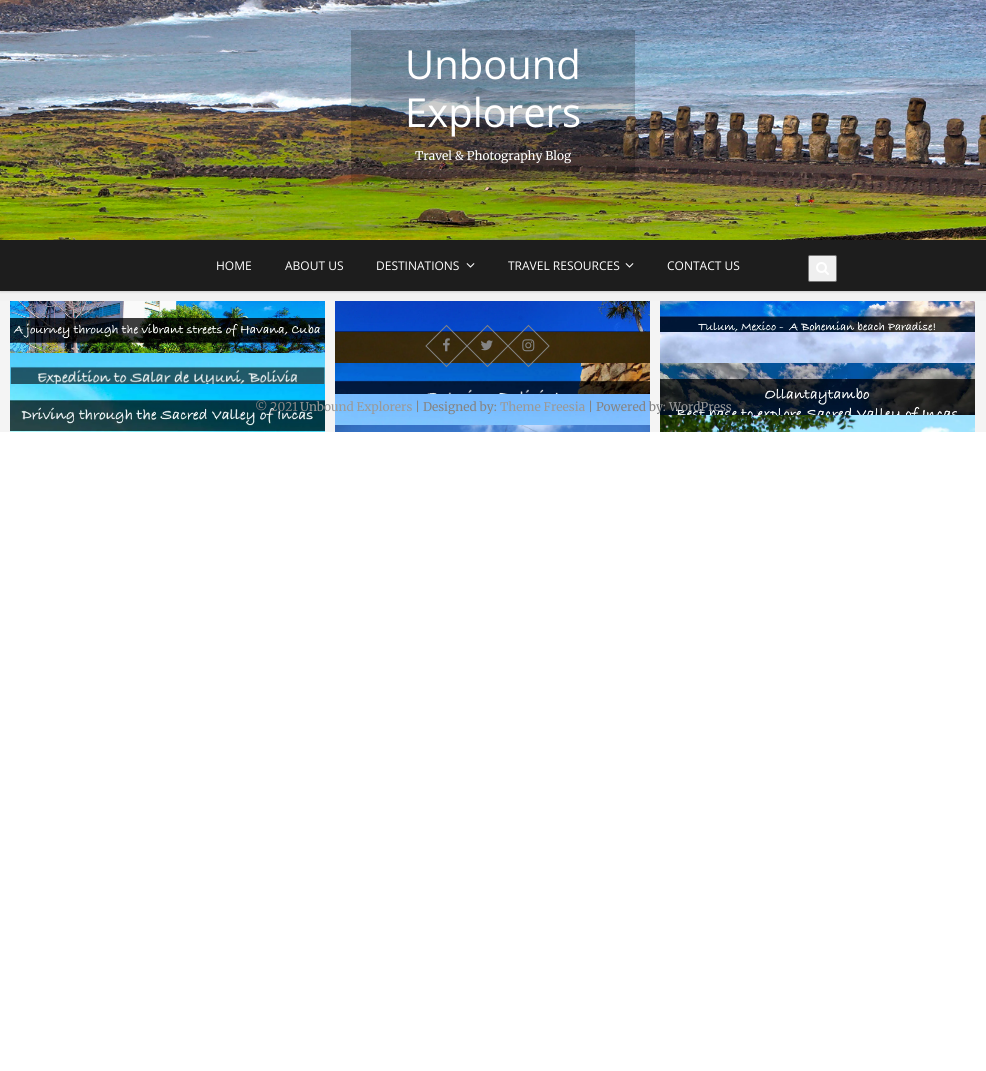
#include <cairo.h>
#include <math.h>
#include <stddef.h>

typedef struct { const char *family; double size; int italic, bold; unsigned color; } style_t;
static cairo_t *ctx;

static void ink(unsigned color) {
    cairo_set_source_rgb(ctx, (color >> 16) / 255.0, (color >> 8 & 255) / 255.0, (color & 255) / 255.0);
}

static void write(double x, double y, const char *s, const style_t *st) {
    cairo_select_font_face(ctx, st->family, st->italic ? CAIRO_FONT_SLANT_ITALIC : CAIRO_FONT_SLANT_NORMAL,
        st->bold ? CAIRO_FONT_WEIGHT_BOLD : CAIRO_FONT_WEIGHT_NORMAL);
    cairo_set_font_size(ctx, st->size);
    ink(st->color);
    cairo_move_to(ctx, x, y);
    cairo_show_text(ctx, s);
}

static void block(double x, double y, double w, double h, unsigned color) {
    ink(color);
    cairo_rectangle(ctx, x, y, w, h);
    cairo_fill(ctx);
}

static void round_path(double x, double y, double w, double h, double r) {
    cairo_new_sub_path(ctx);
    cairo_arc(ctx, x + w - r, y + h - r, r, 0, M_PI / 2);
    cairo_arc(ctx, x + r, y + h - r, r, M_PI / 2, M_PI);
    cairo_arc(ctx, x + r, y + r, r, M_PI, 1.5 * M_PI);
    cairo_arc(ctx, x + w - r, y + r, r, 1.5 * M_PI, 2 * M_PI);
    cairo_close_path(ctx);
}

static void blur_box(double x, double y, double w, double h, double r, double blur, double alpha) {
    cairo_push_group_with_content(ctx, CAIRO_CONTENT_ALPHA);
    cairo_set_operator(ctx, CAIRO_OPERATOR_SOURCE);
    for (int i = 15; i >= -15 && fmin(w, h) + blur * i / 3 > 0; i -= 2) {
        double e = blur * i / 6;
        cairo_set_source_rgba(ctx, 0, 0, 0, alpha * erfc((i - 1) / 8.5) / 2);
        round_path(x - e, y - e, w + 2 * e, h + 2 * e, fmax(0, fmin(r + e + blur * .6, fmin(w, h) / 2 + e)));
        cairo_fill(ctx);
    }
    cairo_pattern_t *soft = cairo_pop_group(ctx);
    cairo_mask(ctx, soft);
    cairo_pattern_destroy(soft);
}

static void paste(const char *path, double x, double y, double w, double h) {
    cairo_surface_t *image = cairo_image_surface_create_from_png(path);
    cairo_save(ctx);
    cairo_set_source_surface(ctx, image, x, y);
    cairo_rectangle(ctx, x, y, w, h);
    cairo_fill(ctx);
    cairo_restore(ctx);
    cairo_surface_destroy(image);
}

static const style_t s1 = {"Open Sans", 40, 0, 0, 0xffffff};
static const style_t s2 = {"Merriweather Light", 12, 0, 0, 0xffffff};
static const style_t s3 = {"Open Sans", 12, 0, 0, 0xffffff};
static const style_t s4 = {"Merriweather Light", 12, 0, 0, 0x848484};
static const style_t s5 = {"Merriweather Light", 12, 0, 0, 0x999999};

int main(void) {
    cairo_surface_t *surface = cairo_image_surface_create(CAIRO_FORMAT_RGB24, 986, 1071);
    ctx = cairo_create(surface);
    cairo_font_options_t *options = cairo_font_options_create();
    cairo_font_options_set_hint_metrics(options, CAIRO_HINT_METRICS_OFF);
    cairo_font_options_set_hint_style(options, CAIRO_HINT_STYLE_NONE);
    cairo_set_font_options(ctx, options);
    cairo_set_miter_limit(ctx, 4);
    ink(0xffffff);
    cairo_paint(ctx);
    paste("pic1.png", 0, 0, 986, 240);
    cairo_set_source_rgba(ctx, 0, 0, 0, 0.2);
    cairo_rectangle(ctx, 351, 30, 284, 116);
    cairo_fill(ctx);
    write(405, 79, "Unbound", &s1);
    write(405, 127, "Explorers", &s1);
    cairo_set_source_rgba(ctx, 0, 0, 0, 0.2);
    cairo_rectangle(ctx, 351, 146, 284, 35);
    cairo_fill(ctx);
    write(415, 160, "Travel & Photography Blog", &s2);
    block(0, 291, 986, 10, 0xf2f2f2);
    ink(0x000000);
    blur_box(0, 241, 986, 51, 0, 1, 0.15);
    block(0, 240, 986, 51, 0x1d1d1d);
    write(216, 270, "HOME", &s3);
    write(285, 270, "ABOUT US", &s3);
    write(376, 270, "DESTINATIONS", &s3);
    paste("pic2.png", 466, 263, 9, 5);
    write(508, 270, "TRAVEL RESOURCES", &s3);
    paste("pic2.png", 625, 263, 9, 5);
    write(667, 270, "CONTACT US", &s3);
    ink(0xefefef);
    round_path(808.5, 255.5, 28, 26, 1.5);
    cairo_fill_preserve(ctx);
    ink(0x767676);
    cairo_set_line_width(ctx, 1);
    cairo_stroke(ctx);
    paste("pic3.png", 816, 262, 13, 13);
    block(0, 301, 986, 131, 0xf4f4f4);
    paste("pic4.png", 10, 301, 315, 52);
    paste("pic5.png", 335, 301, 315, 31);
    paste("pic6.png", 660, 301, 315, 31);
    paste("pic7.png", 335, 332, 315, 31);
    paste("pic8.png", 660, 332, 315, 31);
    paste("pic9.png", 10, 353, 315, 31);
    paste("pic10.png", 335, 363, 315, 31);
    paste("pic11.png", 660, 363, 315, 52);
    paste("pic12.png", 10, 384, 315, 48);
    paste("pic13.png", 335, 394, 315, 31);
    paste("pic14.png", 660, 415, 315, 17);
    paste("pic15.png", 335, 425, 315, 7);
    cairo_new_path(ctx);
    cairo_move_to(ctx, 426, 346);
    cairo_line_to(ctx, 446.5, 325.5);
    cairo_line_to(ctx, 467, 346);
    cairo_line_to(ctx, 446.5, 366.5);
    cairo_close_path(ctx);
    ink(0x848484);
    cairo_stroke(ctx);
    paste("pic16.png", 443, 338, 7, 14);
    cairo_new_path(ctx);
    cairo_move_to(ctx, 467, 346);
    cairo_line_to(ctx, 487.5, 325.5);
    cairo_line_to(ctx, 508, 346);
    cairo_line_to(ctx, 487.5, 366.5);
    cairo_close_path(ctx);
    cairo_stroke(ctx);
    paste("pic17.png", 481, 340, 12, 11);
    cairo_new_path(ctx);
    cairo_move_to(ctx, 508, 346);
    cairo_line_to(ctx, 528.5, 325.5);
    cairo_line_to(ctx, 549, 346);
    cairo_line_to(ctx, 528.5, 366.5);
    cairo_close_path(ctx);
    cairo_stroke(ctx);
    paste("pic18.png", 522, 339, 13, 13);
    write(255, 411, "© 2021", &s4);
    write(300, 411, "Unbound Explorers", &s5);
    write(415, 411, "| Designed by:", &s4);
    write(500, 411, "Theme Freesia", &s5);
    write(588, 411, "| Powered by:", &s4);
    write(669, 411, "WordPress", &s5);
    cairo_surface_write_to_png(surface, "screenshot.png");
    cairo_font_options_destroy(options);
    cairo_destroy(ctx);
    cairo_surface_destroy(surface);
    return 0;
}
